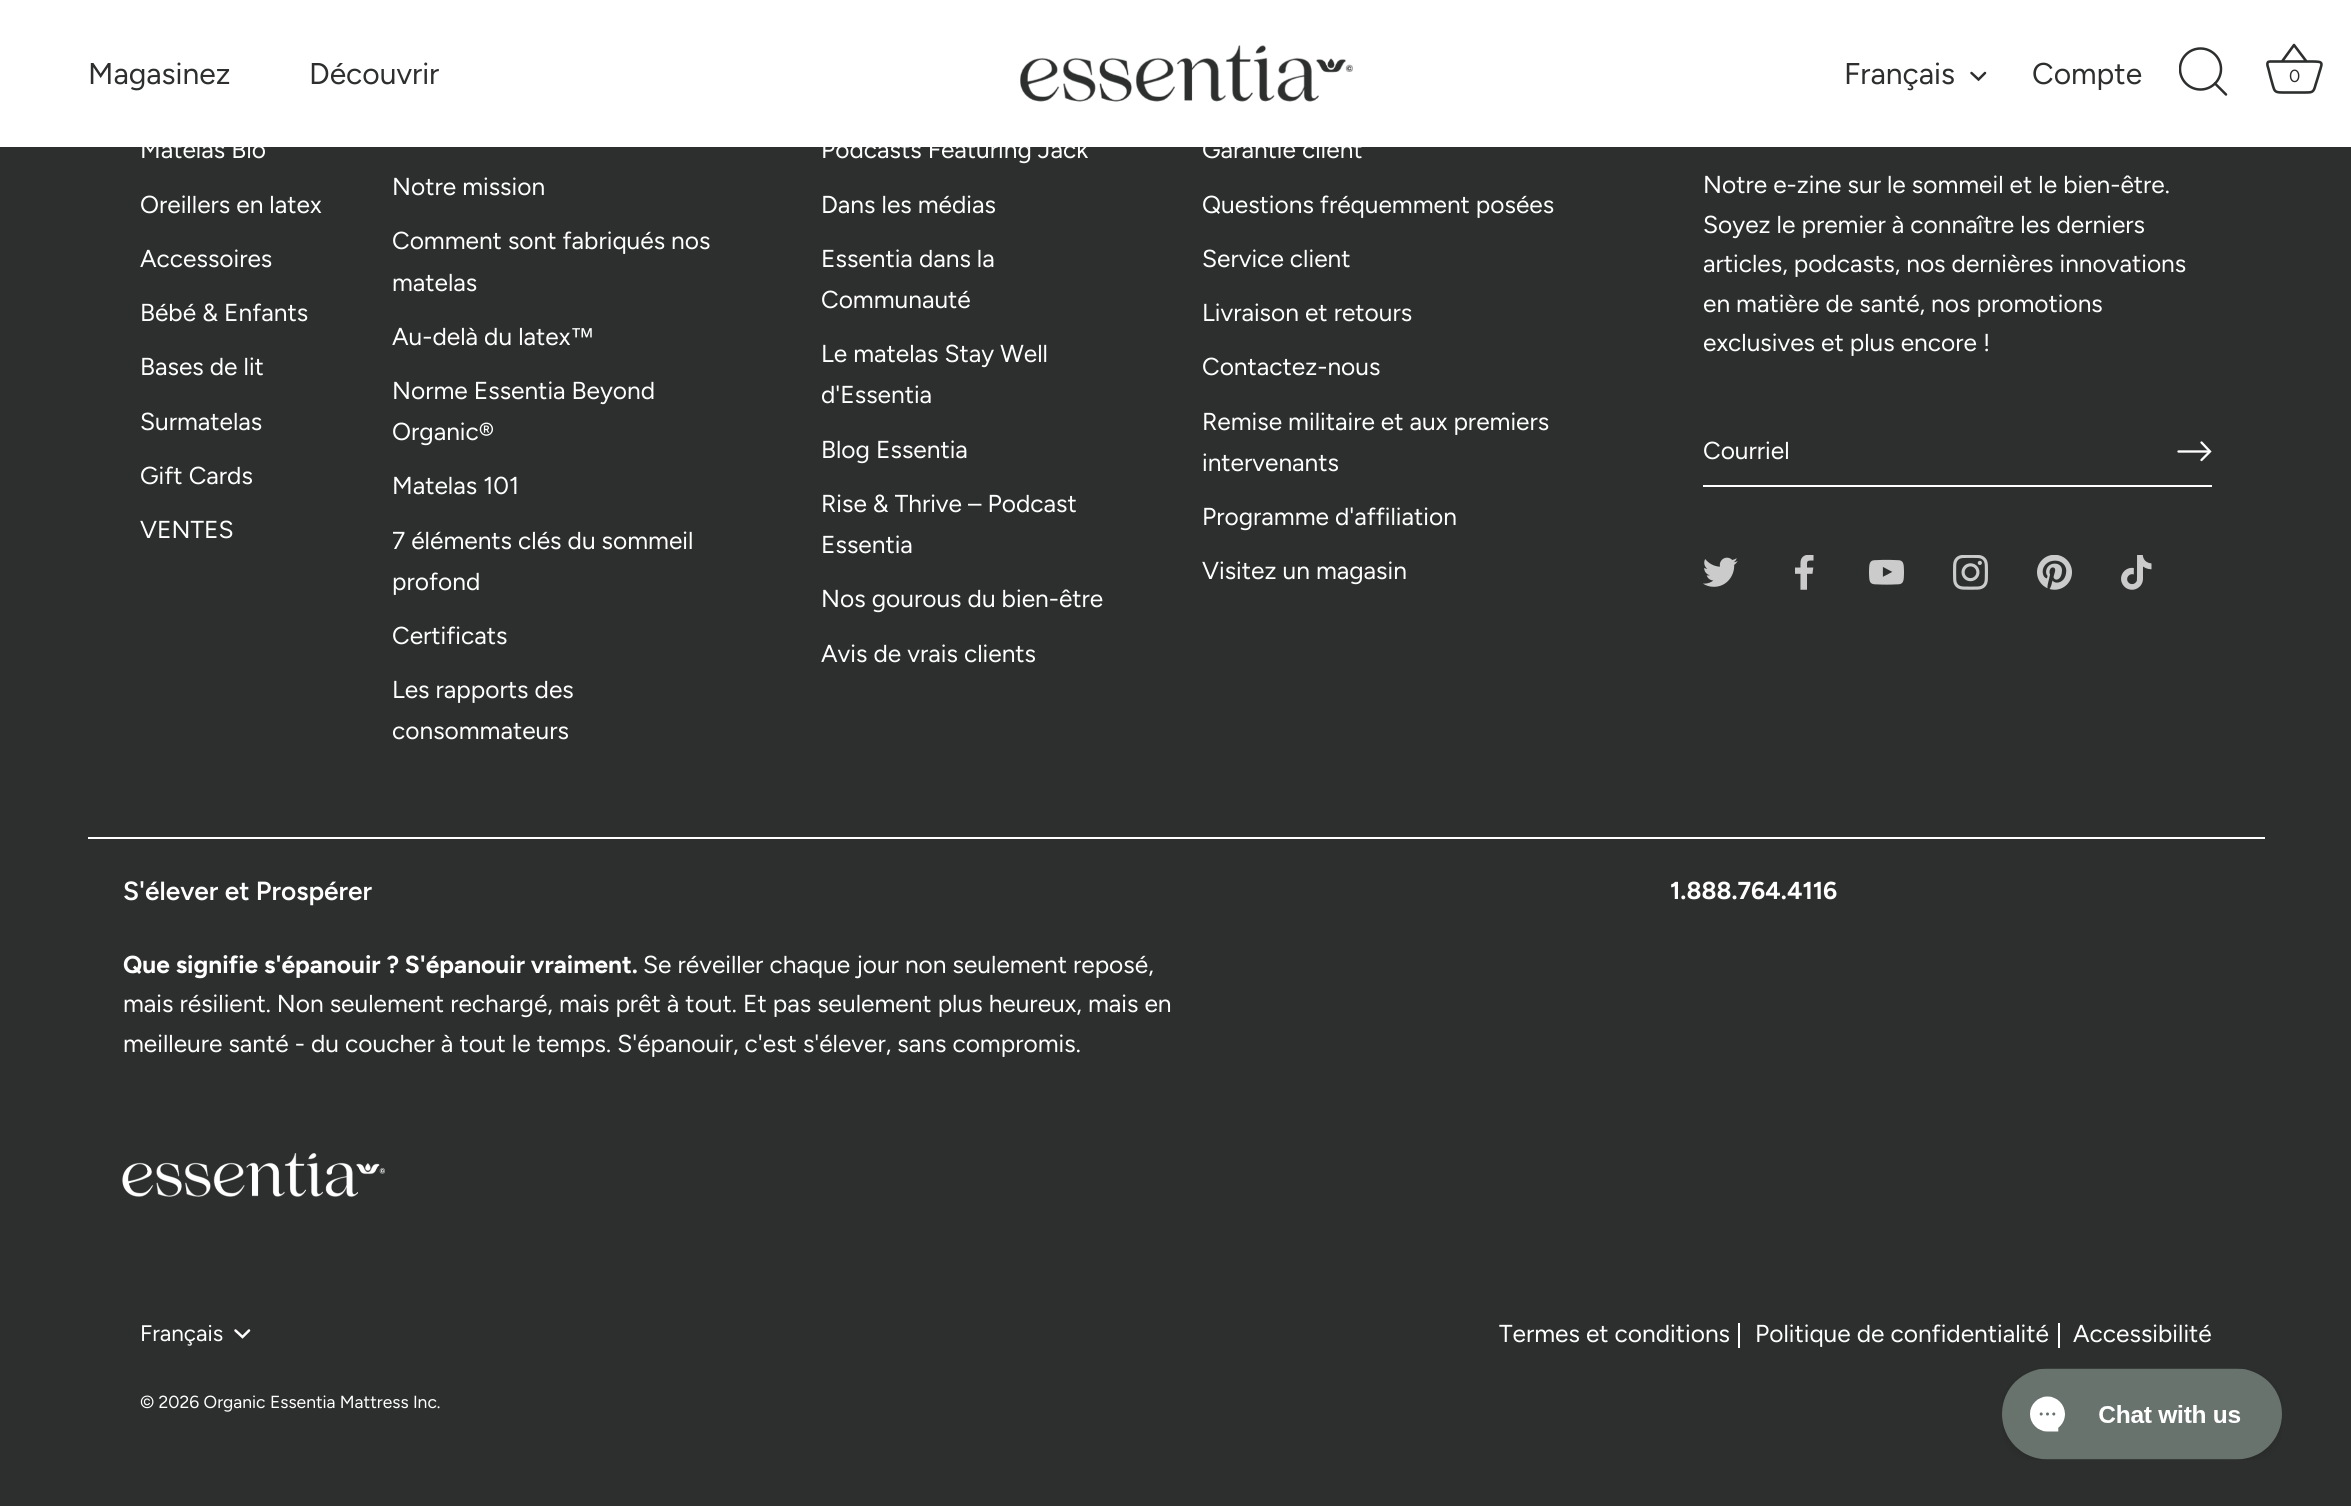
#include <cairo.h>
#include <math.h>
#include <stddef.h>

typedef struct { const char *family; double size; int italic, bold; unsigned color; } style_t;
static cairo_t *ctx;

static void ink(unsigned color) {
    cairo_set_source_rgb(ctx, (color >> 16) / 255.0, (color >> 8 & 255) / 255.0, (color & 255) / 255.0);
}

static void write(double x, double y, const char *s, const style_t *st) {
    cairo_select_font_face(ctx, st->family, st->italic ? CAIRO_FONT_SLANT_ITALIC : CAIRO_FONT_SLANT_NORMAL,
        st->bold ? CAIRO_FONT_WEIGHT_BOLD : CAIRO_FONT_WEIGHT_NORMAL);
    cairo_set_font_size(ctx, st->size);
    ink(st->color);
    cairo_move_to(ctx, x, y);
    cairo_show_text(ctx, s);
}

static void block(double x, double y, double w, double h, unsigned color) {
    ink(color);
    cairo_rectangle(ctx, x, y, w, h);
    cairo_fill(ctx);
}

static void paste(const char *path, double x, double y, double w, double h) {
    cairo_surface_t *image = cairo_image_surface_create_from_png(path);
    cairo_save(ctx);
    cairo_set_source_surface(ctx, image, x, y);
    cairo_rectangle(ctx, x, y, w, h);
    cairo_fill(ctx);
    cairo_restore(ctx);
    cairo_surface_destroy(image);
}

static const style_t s1 = {"Figtree", 30, 0, 0, 0x2c2f2d};
static const style_t s2 = {"Figtree", 17.5, 0, 0, 0x2c2f2d};
static const style_t s3 = {"Figtree", 24.5, 0, 0, 0xffffff};
static const style_t s4 = {"Liberation Sans", 24.5, 0, 0, 0xffffff};
static const style_t s5 = {"Figtree SemiBold", 26.25, 0, 0, 0xffffff};
static const style_t s6 = {"Figtree", 24.5, 0, 1, 0xffffff};
static const style_t s7 = {"Figtree", 22.5, 0, 0, 0xffffff};
static const style_t s8 = {"Figtree", 17.5, 0, 0, 0xffffff};

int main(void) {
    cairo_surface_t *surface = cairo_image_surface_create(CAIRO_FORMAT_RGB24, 2351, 1506);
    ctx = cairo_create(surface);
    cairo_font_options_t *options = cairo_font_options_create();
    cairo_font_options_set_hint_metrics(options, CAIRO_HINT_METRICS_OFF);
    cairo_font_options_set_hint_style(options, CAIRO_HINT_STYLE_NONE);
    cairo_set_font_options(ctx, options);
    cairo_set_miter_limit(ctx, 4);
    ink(0x2c2f2d);
    cairo_paint(ctx);
    block(0, 0, 2351, 147, 0xffffff);
    write(88, 84, "Magasinez", &s1);
    write(309, 84, "Découvrir", &s1);
    paste("pic1.png", 1020, 45, 333, 57);
    write(1844, 84, "Français", &s1);
    cairo_new_path(ctx);
    cairo_move_to(ctx, 1971.5, 73);
    cairo_line_to(ctx, 1978.5, 79.5);
    cairo_line_to(ctx, 1985, 73);
    cairo_set_line_width(ctx, 2.5);
    cairo_set_line_cap(ctx, CAIRO_LINE_CAP_ROUND);
    cairo_stroke(ctx);
    write(2032, 84, "Compte", &s1);
    cairo_save(ctx);
    cairo_rectangle(ctx, 2179, 47, 51, 51);
    cairo_clip(ctx);
    cairo_arc(ctx, 2200.5, 69, 20.5, 0, 2 * M_PI);
    cairo_set_line_cap(ctx, CAIRO_LINE_CAP_BUTT);
    cairo_stroke(ctx);
    cairo_restore(ctx);
    cairo_new_path(ctx);
    cairo_move_to(ctx, 2226, 94.5);
    cairo_line_to(ctx, 2215, 83.5);
    cairo_set_line_join(ctx, CAIRO_LINE_JOIN_ROUND);
    cairo_stroke(ctx);
    cairo_new_path(ctx);
    cairo_move_to(ctx, 2270, 61.5);
    cairo_curve_to(ctx, 2265.5, 61.5, 2268, 67, 2268.5, 69);
    cairo_line_to(ctx, 2270.5, 77);
    cairo_curve_to(ctx, 2275.5, 93.5, 2272, 92.5, 2289, 92.5);
    cairo_line_to(ctx, 2304.5, 92.5);
    cairo_curve_to(ctx, 2312.5, 92.5, 2313.5, 92.5, 2315.5, 85);
    cairo_line_to(ctx, 2318, 77);
    cairo_curve_to(ctx, 2322, 62, 2325.5, 61.5, 2310.5, 61.5);
    cairo_line_to(ctx, 2270, 61.5);
    cairo_move_to(ctx, 2282, 61.5);
    cairo_line_to(ctx, 2294, 45);
    cairo_line_to(ctx, 2306.5, 61.5);
    cairo_set_line_width(ctx, 2.6);
    cairo_set_line_cap(ctx, CAIRO_LINE_CAP_BUTT);
    cairo_stroke(ctx);
    write(2289, 82, "0", &s2);
    write(140, 158, "Matelas Bio", &s3);
    write(140, 213, "Oreillers en latex", &s3);
    write(140, 267, "Accessoires", &s3);
    write(140, 321, "Bébé & Enfants", &s3);
    write(140, 375, "Bases de lit", &s3);
    write(140, 430, "Surmatelas", &s3);
    write(140, 484, "Gift Cards", &s3);
    write(140, 538, "VENTES", &s3);
    write(392, 195, "Notre mission", &s3);
    write(392, 249, "Comment sont fabriqués nos", &s3);
    write(392, 291, "matelas", &s3);
    write(392, 345, "Au-delà du latex", &s3);
    write(570, 345, "™", &s4);
    write(392, 399, "Norme Essentia Beyond", &s3);
    write(392, 440, "Organic®", &s3);
    write(392, 494, "Matelas 101", &s3);
    write(392, 549, "7 éléments clés du sommeil", &s3);
    write(392, 590, "profond", &s3);
    write(392, 644, "Certificats", &s3);
    write(392, 698, "Les rapports des", &s3);
    write(392, 739, "consommateurs", &s3);
    write(821, 158, "Podcasts Featuring Jack", &s3);
    write(821, 213, "Dans les médias", &s3);
    write(821, 267, "Essentia dans la", &s3);
    write(821, 308, "Communauté", &s3);
    write(821, 362, "Le matelas Stay Well", &s3);
    write(821, 403, "d'Essentia", &s3);
    write(821, 458, "Blog Essentia", &s3);
    write(821, 512, "Rise & Thrive – Podcast", &s3);
    write(821, 553, "Essentia", &s3);
    write(821, 607, "Nos gourous du bien-être", &s3);
    write(821, 662, "Avis de vrais clients", &s3);
    write(1202, 158, "Garantie client", &s3);
    write(1202, 213, "Questions fréquemment posées", &s3);
    write(1202, 267, "Service client", &s3);
    write(1202, 321, "Livraison et retours", &s3);
    write(1202, 375, "Contactez-nous", &s3);
    write(1202, 430, "Remise militaire et aux premiers", &s3);
    write(1202, 471, "intervenants", &s3);
    write(1202, 525, "Programme d'affiliation", &s3);
    write(1202, 579, "Visitez un magasin", &s3);
    write(1703, 193, "Notre e-zine sur le sommeil et le bien-être.", &s3);
    write(1703, 233, "Soyez le premier à connaître les derniers", &s3);
    write(1703, 272, "articles, podcasts, nos dernières innovations", &s3);
    write(1703, 312, "en matière de santé, nos promotions", &s3);
    write(1703, 351, "exclusives et plus encore !", &s3);
    block(1703, 485, 509, 2, 0xffffff);
    write(1703, 459, "Courriel", &s3);
    cairo_new_path(ctx);
    cairo_move_to(ctx, 2201.5, 460);
    cairo_line_to(ctx, 2210, 451.5);
    cairo_line_to(ctx, 2201.5, 442.5);
    cairo_set_line_width(ctx, 2.3);
    cairo_set_line_cap(ctx, CAIRO_LINE_CAP_ROUND);
    cairo_set_line_join(ctx, CAIRO_LINE_JOIN_MITER);
    cairo_stroke(ctx);
    cairo_new_path(ctx);
    cairo_move_to(ctx, 2209, 451.5);
    cairo_line_to(ctx, 2178.5, 451.5);
    cairo_set_line_join(ctx, CAIRO_LINE_JOIN_ROUND);
    cairo_stroke(ctx);
    paste("pic2.png", 1703, 557, 35, 30);
    paste("pic3.png", 1795, 555, 19, 35);
    paste("pic4.png", 1869, 559, 35, 26);
    paste("pic5.png", 1953, 555, 35, 35);
    paste("pic6.png", 2037, 555, 35, 35);
    paste("pic7.png", 2121, 555, 31, 35);
    block(88, 837, 2177, 2, 0xffffff);
    write(123, 900, "S'élever et Prospérer", &s5);
    write(123, 973, "Que signifie s'épanouir ? S'épanouir vraiment.", &s6);
    write(643, 973, "Se réveiller chaque jour non seulement reposé,", &s3);
    write(123, 1012, "mais résilient. Non seulement rechargé, mais prêt à tout. Et pas seulement plus heureux, mais en", &s3);
    write(123, 1052, "meilleure santé - du coucher à tout le temps. S'épanouir, c'est s'élever, sans compromis.", &s3);
    paste("pic8.png", 122, 1153, 263, 44);
    write(1670, 899, "1.888.764.4116", &s6);
    write(140, 1341, "Français", &s7);
    cairo_new_path(ctx);
    cairo_move_to(ctx, 235.5, 1330.5);
    cairo_line_to(ctx, 242.5, 1337);
    cairo_line_to(ctx, 249, 1330.5);
    cairo_set_line_width(ctx, 2.5);
    cairo_set_line_join(ctx, CAIRO_LINE_JOIN_MITER);
    cairo_stroke(ctx);
    write(140, 1408, "© 2026 Organic Essentia Mattress Inc.", &s8);
    block(1738, 1323, 2, 25, 0xffffff);
    write(1499, 1342, "Termes et conditions", &s3);
    block(2058, 1323, 2, 25, 0xffffff);
    write(1755, 1342, "Politique de confidentialité", &s3);
    write(2073, 1342, "Accessibilité", &s3);
    paste("pic9.png", 2002, 1368, 280, 92);
    cairo_surface_write_to_png(surface, "screenshot.png");
    cairo_font_options_destroy(options);
    cairo_destroy(ctx);
    cairo_surface_destroy(surface);
    return 0;
}
